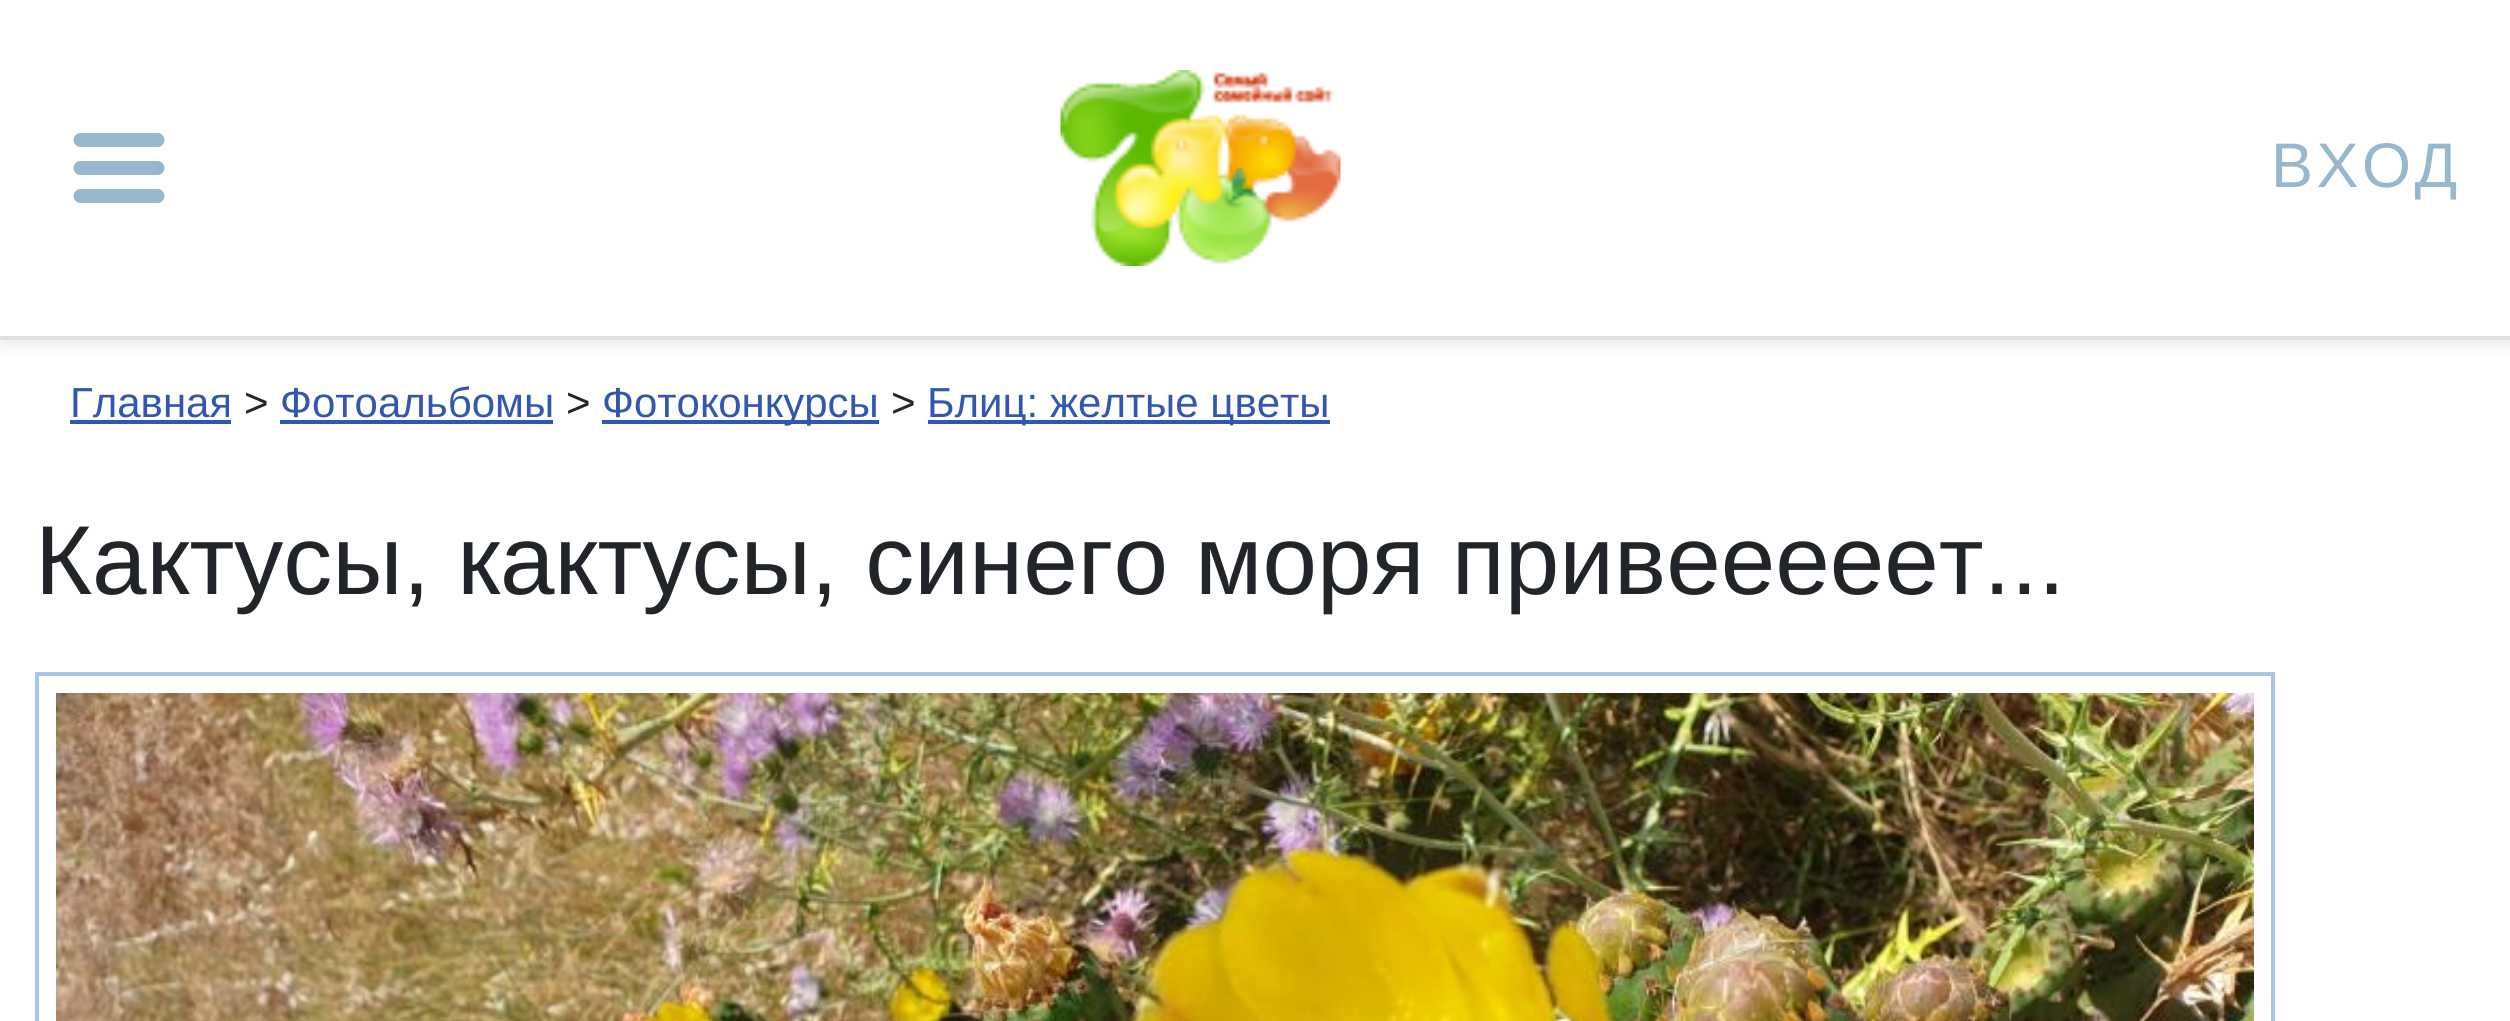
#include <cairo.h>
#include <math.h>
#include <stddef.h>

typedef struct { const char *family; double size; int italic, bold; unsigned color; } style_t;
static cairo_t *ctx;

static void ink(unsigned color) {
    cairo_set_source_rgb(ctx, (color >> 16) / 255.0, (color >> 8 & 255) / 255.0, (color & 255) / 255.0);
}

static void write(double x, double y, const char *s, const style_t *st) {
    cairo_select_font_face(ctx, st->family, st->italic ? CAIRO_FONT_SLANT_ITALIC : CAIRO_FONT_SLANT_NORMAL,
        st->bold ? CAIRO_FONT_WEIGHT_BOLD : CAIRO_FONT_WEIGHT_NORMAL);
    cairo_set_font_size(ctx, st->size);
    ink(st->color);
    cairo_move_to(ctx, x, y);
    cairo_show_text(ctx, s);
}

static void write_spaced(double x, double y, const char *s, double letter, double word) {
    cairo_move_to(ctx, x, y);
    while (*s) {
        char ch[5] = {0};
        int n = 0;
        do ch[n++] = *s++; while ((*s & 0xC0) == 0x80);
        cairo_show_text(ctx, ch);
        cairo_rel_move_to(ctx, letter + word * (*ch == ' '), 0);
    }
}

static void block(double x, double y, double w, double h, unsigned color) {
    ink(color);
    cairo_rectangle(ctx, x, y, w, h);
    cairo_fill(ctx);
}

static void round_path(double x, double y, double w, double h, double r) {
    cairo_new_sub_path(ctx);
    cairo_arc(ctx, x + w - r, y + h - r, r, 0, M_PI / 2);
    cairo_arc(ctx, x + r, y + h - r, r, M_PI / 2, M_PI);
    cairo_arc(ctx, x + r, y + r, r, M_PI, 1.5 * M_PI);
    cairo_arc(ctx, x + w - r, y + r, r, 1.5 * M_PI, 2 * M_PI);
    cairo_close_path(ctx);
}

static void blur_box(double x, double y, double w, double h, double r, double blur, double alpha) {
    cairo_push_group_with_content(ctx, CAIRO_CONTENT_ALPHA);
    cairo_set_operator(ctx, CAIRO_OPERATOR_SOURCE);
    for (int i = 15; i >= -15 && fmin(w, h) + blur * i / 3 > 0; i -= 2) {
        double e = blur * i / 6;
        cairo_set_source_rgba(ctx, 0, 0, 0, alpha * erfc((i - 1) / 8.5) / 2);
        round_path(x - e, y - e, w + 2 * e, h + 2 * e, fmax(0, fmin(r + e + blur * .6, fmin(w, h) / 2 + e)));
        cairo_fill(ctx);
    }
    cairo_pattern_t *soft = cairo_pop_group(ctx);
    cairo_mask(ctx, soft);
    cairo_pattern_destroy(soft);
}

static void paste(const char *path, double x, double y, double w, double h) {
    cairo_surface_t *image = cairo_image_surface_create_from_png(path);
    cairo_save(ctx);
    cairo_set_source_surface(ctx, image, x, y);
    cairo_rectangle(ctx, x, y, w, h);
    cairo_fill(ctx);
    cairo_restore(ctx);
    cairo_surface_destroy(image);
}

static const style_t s1 = {"Liberation Sans", 42, 0, 0, 0x3157b0};
static const style_t s2 = {"Liberation Sans", 42, 0, 0, 0x212529};
static const style_t s3 = {"Liberation Sans", 98, 0, 0, 0x212529};

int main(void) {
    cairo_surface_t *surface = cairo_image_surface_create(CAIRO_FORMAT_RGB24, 2510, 1021);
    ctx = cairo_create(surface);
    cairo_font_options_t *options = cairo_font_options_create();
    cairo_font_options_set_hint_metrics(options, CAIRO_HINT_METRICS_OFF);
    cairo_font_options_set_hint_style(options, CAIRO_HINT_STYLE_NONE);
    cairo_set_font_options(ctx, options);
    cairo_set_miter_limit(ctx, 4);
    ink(0xffffff);
    cairo_paint(ctx);
    ink(0x000000);
    blur_box(0, 7, 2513, 340, 0, 7, 0.07);
    block(0, 0, 2510, 336, 0xffffff);
    block(0, 336, 2510, 4, 0xdee2e6);
    cairo_new_path(ctx);
    cairo_move_to(ctx, 80.5, 140);
    cairo_line_to(ctx, 157.5, 140);
    cairo_move_to(ctx, 80.5, 168);
    cairo_line_to(ctx, 157.5, 168);
    cairo_move_to(ctx, 80.5, 196);
    cairo_line_to(ctx, 157.5, 196);
    ink(0x96b7cc);
    cairo_set_line_width(ctx, 14);
    cairo_set_line_cap(ctx, CAIRO_LINE_CAP_ROUND);
    cairo_stroke(ctx);
    paste("pic1.png", 1060, 70, 281, 196);
    cairo_select_font_face(ctx, "Liberation Sans", CAIRO_FONT_SLANT_NORMAL, CAIRO_FONT_WEIGHT_NORMAL);
    cairo_set_font_size(ctx, 63);
    write_spaced(2271, 187, "ВХОД", 3.5, 0);
    write(70, 417, "Главная", &s1);
    block(70, 420, 161, 4, 0x3157b0);
    write(244, 417, ">", &s2);
    write(280, 417, "Фотоальбомы", &s1);
    block(280, 420, 273, 4, 0x3157b0);
    write(566, 417, ">", &s2);
    block(602, 420, 277, 4, 0x3157b0);
    write(602, 417, "Фотоконкурсы", &s1);
    write(891, 417, ">", &s2);
    block(928, 420, 402, 4, 0x3157b0);
    write(927, 417, "Блиц: желтые цветы", &s1);
    write(35, 594, "Кактусы, кактусы, синего моря привееееет...", &s3);
    cairo_rectangle(ctx, 37, 674, 2236, 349);
    ink(0xa9c7e4);
    cairo_set_line_width(ctx, 4);
    cairo_set_line_cap(ctx, CAIRO_LINE_CAP_BUTT);
    cairo_stroke(ctx);
    paste("pic2.png", 56, 693, 2198, 328);
    cairo_surface_write_to_png(surface, "screenshot.png");
    cairo_font_options_destroy(options);
    cairo_destroy(ctx);
    cairo_surface_destroy(surface);
    return 0;
}
